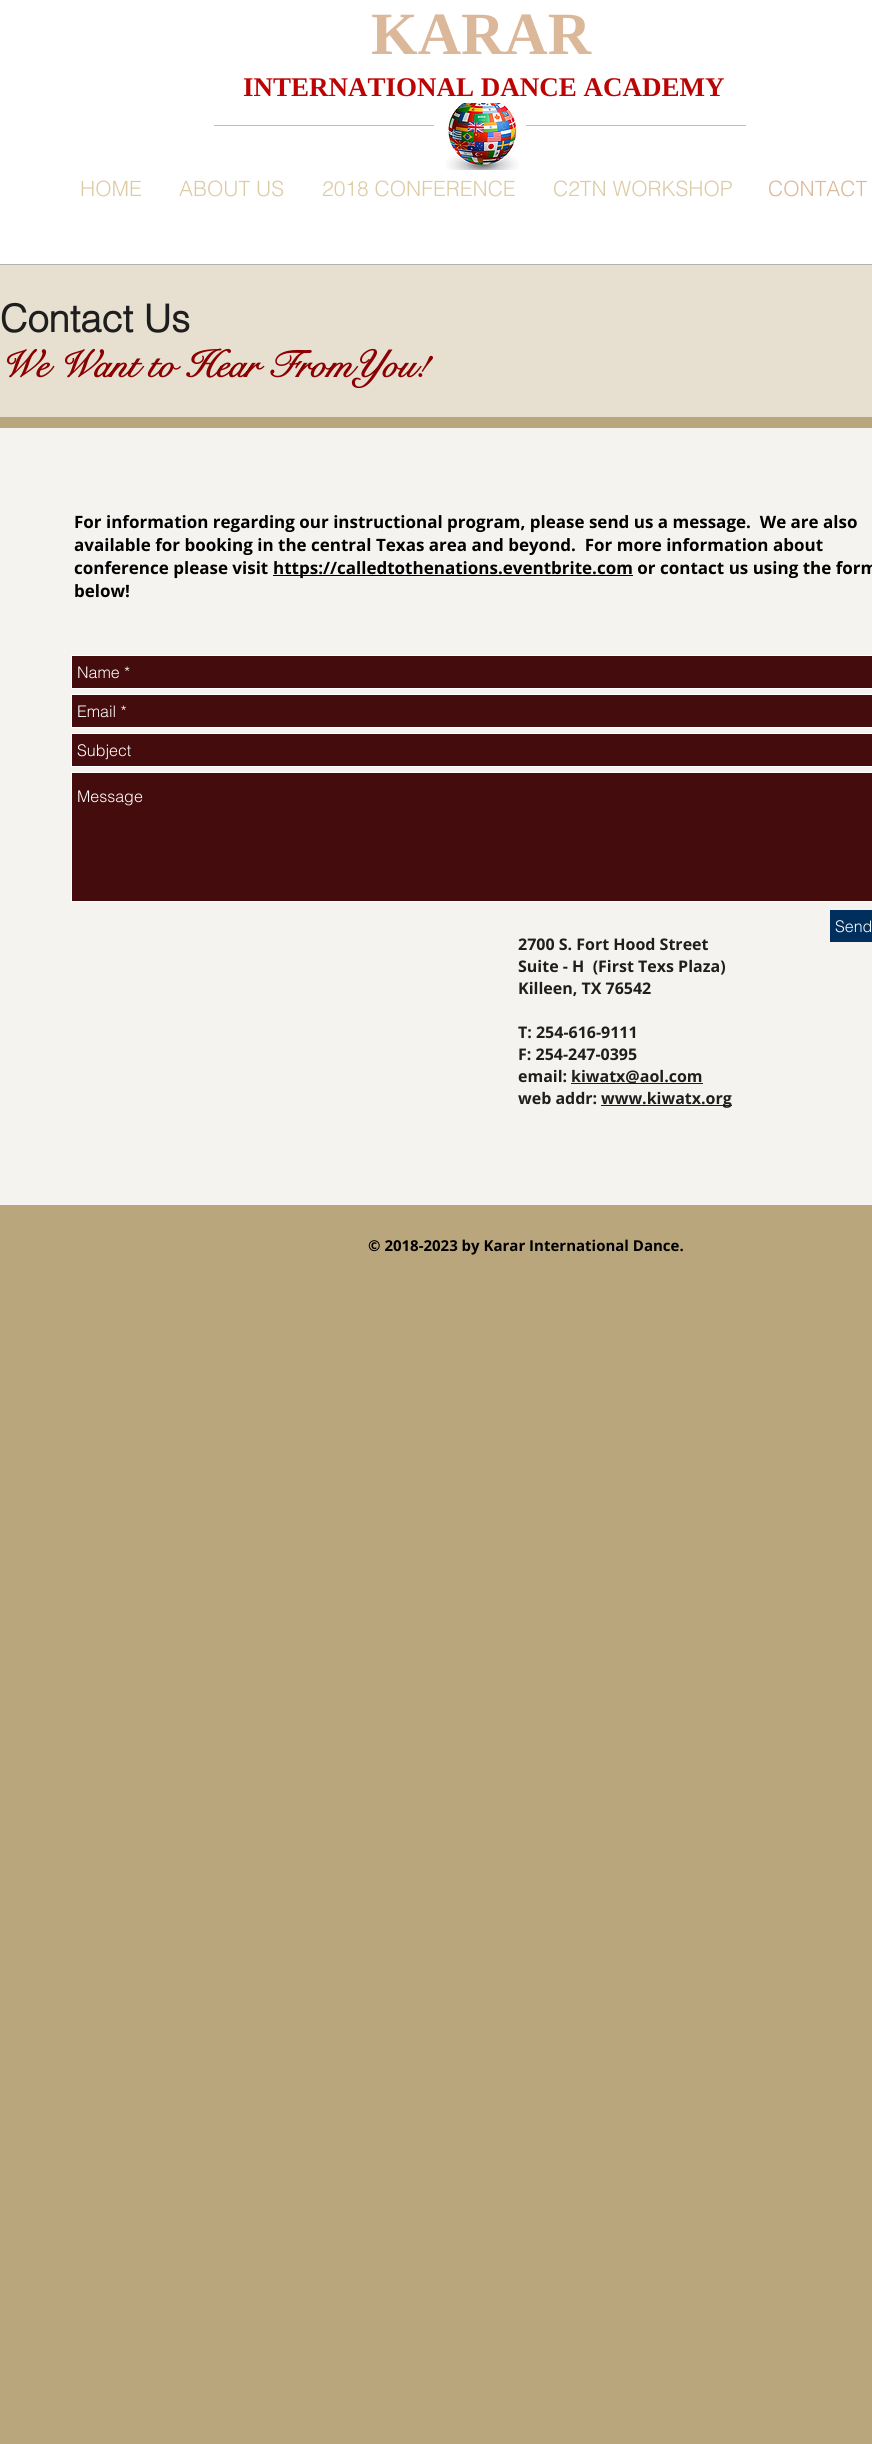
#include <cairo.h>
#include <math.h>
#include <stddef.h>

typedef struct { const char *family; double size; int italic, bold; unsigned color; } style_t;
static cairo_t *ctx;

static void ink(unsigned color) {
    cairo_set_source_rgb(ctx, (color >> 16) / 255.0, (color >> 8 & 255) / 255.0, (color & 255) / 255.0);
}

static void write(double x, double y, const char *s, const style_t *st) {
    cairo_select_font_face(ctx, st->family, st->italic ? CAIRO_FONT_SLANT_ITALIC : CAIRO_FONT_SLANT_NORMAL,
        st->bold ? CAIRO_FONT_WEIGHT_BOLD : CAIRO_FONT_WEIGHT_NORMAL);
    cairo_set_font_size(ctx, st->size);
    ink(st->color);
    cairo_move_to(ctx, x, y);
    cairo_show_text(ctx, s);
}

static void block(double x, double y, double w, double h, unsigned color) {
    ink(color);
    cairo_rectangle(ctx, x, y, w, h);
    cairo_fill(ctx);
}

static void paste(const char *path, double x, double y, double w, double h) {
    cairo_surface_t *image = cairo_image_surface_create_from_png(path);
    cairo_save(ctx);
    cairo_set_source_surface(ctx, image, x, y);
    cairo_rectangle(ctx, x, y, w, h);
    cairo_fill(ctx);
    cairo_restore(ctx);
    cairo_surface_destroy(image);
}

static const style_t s1 = {"Liberation Serif", 60, 0, 1, 0xdbb89a};
static const style_t s2 = {"Liberation Serif", 27, 0, 1, 0xbd0404};
static const style_t s3 = {"helvetica Light", 21, 0, 0, 0xdccba5};
static const style_t s4 = {"helvetica Light", 21, 0, 0, 0xdbb89a};
static const style_t s5 = {"helvetica", 38, 0, 1, 0x1e1e1e};
static const style_t s6 = {"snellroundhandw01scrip", 38, 0, 1, 0x8b0000};
static const style_t s7 = {"Open Sans", 17, 0, 1, 0x000000};
static const style_t s8 = {"helvetica Light", 16, 0, 0, 0xffffff};
static const style_t s9 = {"Open Sans", 16, 0, 1, 0x1e1e1e};
static const style_t s10 = {"Open Sans", 15, 0, 1, 0x000000};

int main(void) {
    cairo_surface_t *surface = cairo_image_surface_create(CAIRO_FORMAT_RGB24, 872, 2444);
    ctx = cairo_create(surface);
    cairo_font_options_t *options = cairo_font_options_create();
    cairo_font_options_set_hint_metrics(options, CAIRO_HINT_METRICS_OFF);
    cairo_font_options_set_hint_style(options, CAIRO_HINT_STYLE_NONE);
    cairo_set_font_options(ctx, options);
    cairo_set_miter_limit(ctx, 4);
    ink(0xbaa67c);
    cairo_paint(ctx);
    block(0, 0, 872, 264, 0xffffff);
    block(0, 264, 872, 1, 0xb2b1b1);
    write(371, 54, "KARAR", &s1);
    write(243, 96, "INTERNATIONAL DANCE ACADEMY", &s2);
    block(214, 125, 220, 1, 0xdbb89a);
    paste("pic1.png", 446, 103, 73, 67);
    block(526, 125, 220, 1, 0xdbb89a);
    write(80, 196, "HOME", &s3);
    write(179, 196, "ABOUT US", &s3);
    write(322, 196, "2018 CONFERENCE", &s3);
    write(553, 196, "C2TN WORKSHOP", &s3);
    write(768, 196, "CONTACT", &s4);
    block(0, 265, 872, 152, 0xe7e0d1);
    write(0, 332, "Contact Us", &s5);
    write(0, 377, "We Want to Hear FromYou!", &s6);
    block(0, 428, 872, 777, 0xf5f3f0);
    write(74, 528, "For information regarding our instructional program, please send us a message.  We are also", &s7);
    write(74, 551, "available for booking in the central Texas area and beyond.  For more information about", &s7);
    write(74, 574, "conference please visit", &s7);
    block(273, 575, 360, 1, 0x000000);
    write(273, 574, "https://calledtothenations.eventbrite.com or contact us using the form", &s7);
    write(74, 597, "below!", &s7);
    ink(0x440c0c);
    cairo_rectangle(ctx, 71.5, 655.5, 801, 33);
    cairo_fill_preserve(ctx);
    ink(0xffffff);
    cairo_set_line_width(ctx, 1);
    cairo_stroke(ctx);
    write(77, 678, "Name *", &s8);
    ink(0x440c0c);
    cairo_rectangle(ctx, 71.5, 694.5, 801, 33);
    cairo_fill_preserve(ctx);
    ink(0xffffff);
    cairo_stroke(ctx);
    write(77, 717, "Email *", &s8);
    ink(0x440c0c);
    cairo_rectangle(ctx, 71.5, 733.5, 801, 33);
    cairo_fill_preserve(ctx);
    ink(0xffffff);
    cairo_stroke(ctx);
    write(77, 756, "Subject", &s8);
    ink(0x440c0c);
    cairo_rectangle(ctx, 71.5, 772.5, 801, 129);
    cairo_fill_preserve(ctx);
    ink(0xffffff);
    cairo_stroke(ctx);
    write(77, 802, "Message", &s8);
    block(830, 910, 42, 32, 0x002e5d);
    write(835, 932, "Send", &s8);
    write(518, 950, "2700 S. Fort Hood Street", &s9);
    write(518, 972, "Suite - H  (First Texs Plaza)", &s9);
    write(518, 994, "Killeen, TX 76542", &s9);
    write(518, 1038, "T: 254-616-9111", &s9);
    write(518, 1060, "F: 254-247-0395", &s9);
    write(518, 1082, "email:", &s9);
    block(571, 1083, 132, 1, 0x1e1e1e);
    write(571, 1082, "kiwatx@aol.com", &s9);
    write(518, 1104, "web addr:", &s9);
    block(601, 1105, 131, 1, 0x1e1e1e);
    write(601, 1104, "www.kiwatx.org", &s9);
    write(368, 1251, "© 2018-2023 by Karar International Dance.", &s10);
    cairo_surface_write_to_png(surface, "screenshot.png");
    cairo_font_options_destroy(options);
    cairo_destroy(ctx);
    cairo_surface_destroy(surface);
    return 0;
}
